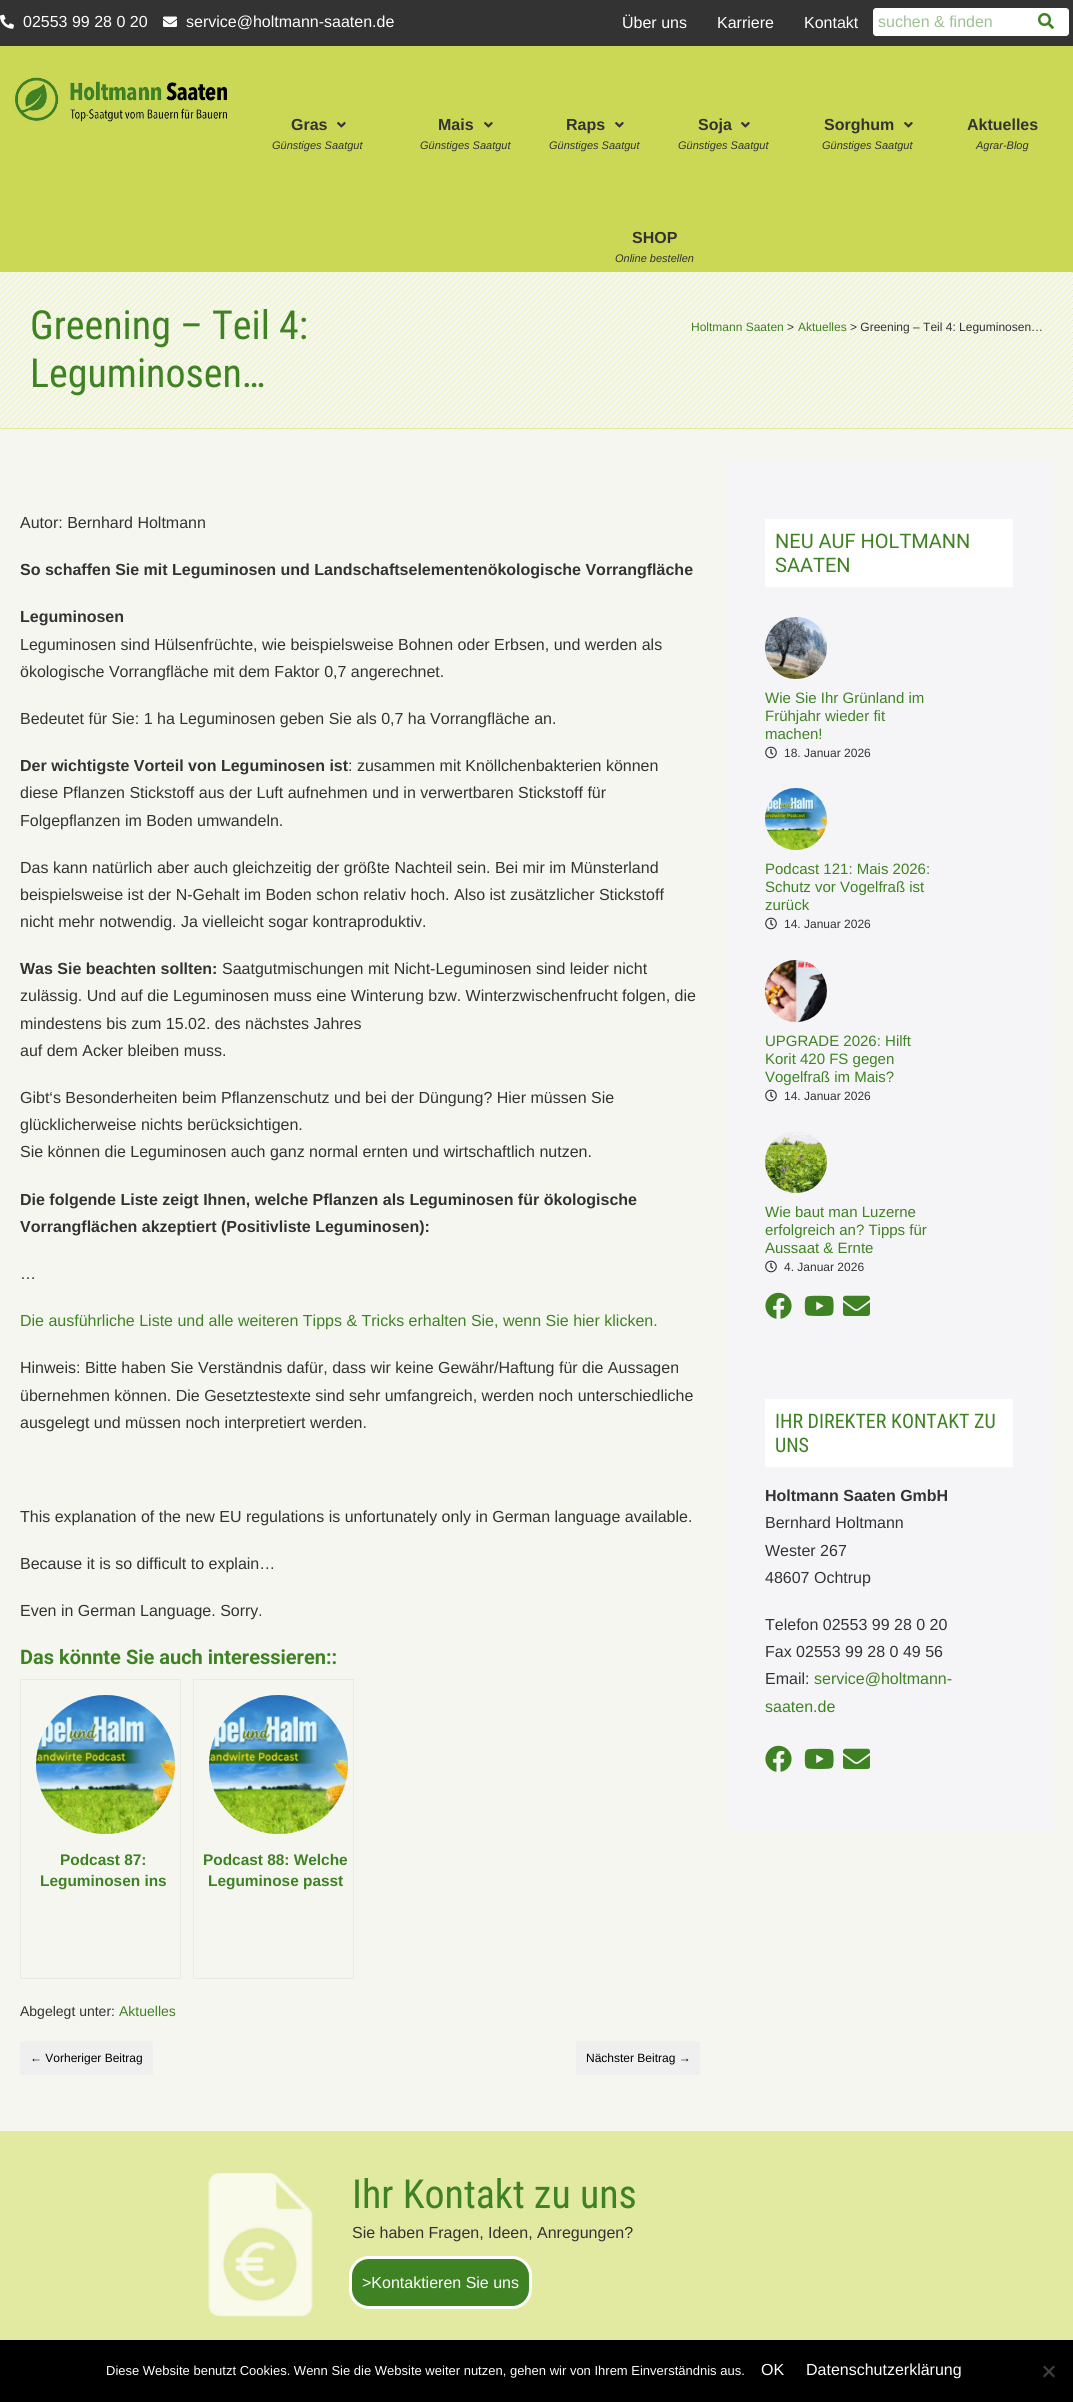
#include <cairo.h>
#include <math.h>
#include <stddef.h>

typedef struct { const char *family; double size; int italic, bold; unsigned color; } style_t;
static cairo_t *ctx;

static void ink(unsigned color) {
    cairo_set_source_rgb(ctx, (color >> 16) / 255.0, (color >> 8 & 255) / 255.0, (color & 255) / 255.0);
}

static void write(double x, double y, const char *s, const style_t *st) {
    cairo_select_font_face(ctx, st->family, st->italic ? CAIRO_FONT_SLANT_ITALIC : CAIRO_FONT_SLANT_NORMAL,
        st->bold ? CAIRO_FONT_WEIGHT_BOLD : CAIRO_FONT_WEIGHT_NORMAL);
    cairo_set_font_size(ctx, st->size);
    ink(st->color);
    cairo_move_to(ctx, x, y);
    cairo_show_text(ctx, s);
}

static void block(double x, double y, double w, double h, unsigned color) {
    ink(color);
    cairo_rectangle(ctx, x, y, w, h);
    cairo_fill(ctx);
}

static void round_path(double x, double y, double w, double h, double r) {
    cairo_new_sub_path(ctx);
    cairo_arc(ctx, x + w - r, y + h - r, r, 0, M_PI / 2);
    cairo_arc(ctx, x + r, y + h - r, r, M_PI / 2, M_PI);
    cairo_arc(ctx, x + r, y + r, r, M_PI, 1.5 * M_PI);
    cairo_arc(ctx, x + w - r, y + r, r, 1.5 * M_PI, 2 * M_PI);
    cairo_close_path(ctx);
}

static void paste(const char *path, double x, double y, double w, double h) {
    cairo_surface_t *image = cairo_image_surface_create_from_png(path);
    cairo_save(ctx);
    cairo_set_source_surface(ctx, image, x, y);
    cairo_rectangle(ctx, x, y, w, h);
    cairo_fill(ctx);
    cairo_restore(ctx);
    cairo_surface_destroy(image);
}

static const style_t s1 = {"Liberation Sans", 16, 0, 0, 0xffffff};
static const style_t s2 = {"Liberation Sans", 16, 0, 0, 0x9fc192};
static const style_t s3 = {"Liberation Sans", 16, 0, 1, 0x333333};
static const style_t s4 = {"Liberation Sans", 11, 1, 0, 0x333333};
static const style_t s5 = {"Roboto Condensed", 40, 0, 0, 0x3f8224};
static const style_t s6 = {"Liberation Sans", 12, 0, 0, 0x3f8224};
static const style_t s7 = {"Liberation Sans", 12, 0, 0, 0x333333};
static const style_t s8 = {"Liberation Sans", 16, 0, 0, 0x333333};
static const style_t s9 = {"Liberation Sans", 16, 0, 0, 0x3f8224};
static const style_t s10 = {"Roboto", 20, 0, 1, 0x3f8224};
static const style_t s11 = {"Liberation Sans", 15.4, 0, 1, 0x3f8224};
static const style_t s12 = {"Liberation Sans", 14, 0, 0, 0x333333};
static const style_t s13 = {"Liberation Sans", 14, 0, 0, 0x3f8224};
static const style_t s14 = {"Liberation Sans", 12, 0, 0, 0x000000};
static const style_t s15 = {"Roboto", 20, 0, 0, 0x3f8224};
static const style_t s16 = {"Liberation Sans", 15, 0, 0, 0x3f8224};
static const style_t s17 = {"Roboto Condensed", 20, 0, 0, 0x3f8224};
static const style_t s18 = {"Liberation Sans", 13, 0, 0, 0xffffff};

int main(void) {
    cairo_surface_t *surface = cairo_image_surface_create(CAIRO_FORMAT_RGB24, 1073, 2402);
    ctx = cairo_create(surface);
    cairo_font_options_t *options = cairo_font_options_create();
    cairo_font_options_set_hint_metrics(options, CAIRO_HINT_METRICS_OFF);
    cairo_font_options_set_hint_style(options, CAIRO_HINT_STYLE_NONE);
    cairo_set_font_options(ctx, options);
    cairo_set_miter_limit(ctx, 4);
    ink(0xf5f6f0);
    cairo_paint(ctx);
    block(0, 0, 1073, 46, 0x333333);
    paste("pic1.png", 0, 14, 14, 15);
    write(23, 27, "02553 99 28 0 20", &s1);
    paste("pic2.png", 163, 16, 14, 11);
    write(186, 27, "service@holtmann-saaten.de", &s1);
    write(622, 28, "Über uns", &s1);
    write(717, 28, "Karriere", &s1);
    write(804, 28, "Kontakt", &s1);
    cairo_new_path(ctx);
    cairo_move_to(ctx, 876, 8);
    cairo_line_to(ctx, 1023, 8);
    cairo_line_to(ctx, 1023, 36);
    cairo_line_to(ctx, 876, 36);
    cairo_curve_to(ctx, 874.5, 36, 873, 34.5, 873, 33);
    cairo_line_to(ctx, 873, 11);
    cairo_curve_to(ctx, 873, 9.5, 874.5, 8, 876, 8);
    cairo_close_path(ctx);
    cairo_fill(ctx);
    write(878, 27, "suchen & finden", &s2);
    ink(0xffffff);
    cairo_new_path(ctx);
    cairo_move_to(ctx, 1023, 8);
    cairo_line_to(ctx, 1066, 8);
    cairo_curve_to(ctx, 1067.5, 8, 1069, 9.5, 1069, 11);
    cairo_line_to(ctx, 1069, 33);
    cairo_curve_to(ctx, 1069, 34.5, 1067.5, 36, 1066, 36);
    cairo_line_to(ctx, 1023, 36);
    cairo_close_path(ctx);
    cairo_fill(ctx);
    paste("pic3.png", 1038, 13, 16, 16);
    block(0, 46, 1073, 226, 0xcbd855);
    paste("pic4.png", 10, 71, 222, 57);
    write(291, 130, "Gras", &s3);
    paste("pic5.png", 337, 122, 9, 6);
    write(272, 149, "Günstiges Saatgut", &s4);
    write(438, 130, "Mais", &s3);
    paste("pic5.png", 484, 122, 9, 6);
    write(420, 149, "Günstiges Saatgut", &s4);
    write(566, 130, "Raps", &s3);
    paste("pic5.png", 615, 122, 9, 6);
    write(549, 149, "Günstiges Saatgut", &s4);
    write(698, 130, "Soja", &s3);
    paste("pic5.png", 741, 122, 9, 6);
    write(678, 149, "Günstiges Saatgut", &s4);
    write(824, 130, "Sorghum", &s3);
    paste("pic5.png", 904, 122, 9, 6);
    write(822, 149, "Günstiges Saatgut", &s4);
    write(967, 130, "Aktuelles", &s3);
    write(976, 149, "Agrar-Blog", &s4);
    write(632, 243, "SHOP", &s3);
    write(615, 262, "Online bestellen", &s4);
    paste("pic6.png", 0, 272, 1073, 156);
    block(0, 428, 1073, 1, 0xe2e9a1);
    write(30, 339, "Greening – Teil 4:", &s5);
    write(30, 387, "Leguminosen…", &s5);
    write(691, 331, "Holtmann Saaten", &s6);
    write(787, 331, ">", &s7);
    write(798, 331, "Aktuelles", &s6);
    write(850, 331, "> Greening – Teil 4: Leguminosen…", &s7);
    write(20, 528, "Autor: Bernhard Holtmann", &s8);
    write(20, 575, "So schaffen Sie mit Leguminosen und Landschaftselementenökologische Vorrangfläche", &s3);
    write(20, 622, "Leguminosen", &s3);
    write(20, 650, "Leguminosen sind Hülsenfrüchte, wie beispielsweise Bohnen oder Erbsen, und werden als", &s8);
    write(20, 677, "ökologische Vorrangfläche mit dem Faktor 0,7 angerechnet.", &s8);
    write(20, 724, "Bedeutet für Sie: 1 ha Leguminosen geben Sie als 0,7 ha Vorrangfläche an.", &s8);
    write(20, 771, "Der wichtigste Vorteil von Leguminosen ist", &s3);
    write(348, 771, ": zusammen mit Knöllchenbakterien können", &s8);
    write(20, 798, "diese Pflanzen Stickstoff aus der Luft aufnehmen und in verwertbaren Stickstoff für", &s8);
    write(20, 826, "Folgepflanzen im Boden umwandeln.", &s8);
    write(20, 873, "Das kann natürlich aber auch gleichzeitig der größte Nachteil sein. Bei mir im Münsterland", &s8);
    write(20, 900, "beispielsweise ist der N-Gehalt im Boden schon relativ hoch. Also ist zusätzlicher Stickstoff", &s8);
    write(20, 927, "nicht mehr notwendig. Ja vielleicht sogar kontraproduktiv.", &s8);
    write(20, 974, "Was Sie beachten sollten:", &s3);
    write(222, 974, "Saatgutmischungen mit Nicht-Leguminosen sind leider nicht", &s8);
    write(20, 1001, "zulässig. Und auf die Leguminosen muss eine Winterung bzw. Winterzwischenfrucht folgen, die", &s8);
    write(20, 1029, "mindestens bis zum 15.02. des nächstes Jahres", &s8);
    write(20, 1056, "auf dem Acker bleiben muss.", &s8);
    write(20, 1103, "Gibt‘s Besonderheiten beim Pflanzenschutz und bei der Düngung? Hier müssen Sie", &s8);
    write(20, 1130, "glücklicherweise nichts berücksichtigen.", &s8);
    write(20, 1157, "Sie können die Leguminosen auch ganz normal ernten und wirtschaftlich nutzen.", &s8);
    write(20, 1205, "Die folgende Liste zeigt Ihnen, welche Pflanzen als Leguminosen für ökologische", &s3);
    write(20, 1232, "Vorrangflächen akzeptiert (Positivliste Leguminosen):", &s3);
    write(20, 1279, "…", &s8);
    write(20, 1326, "Die ausführliche Liste und alle weiteren Tipps & Tricks erhalten Sie, wenn Sie hier klicken.", &s9);
    write(20, 1373, "Hinweis: Bitte haben Sie Verständnis dafür, dass wir keine Gewähr/Haftung für die Aussagen", &s8);
    write(20, 1401, "übernehmen können. Die Gesetztestexte sind sehr umfangreich, werden noch unterschiedliche", &s8);
    write(20, 1428, "ausgelegt und müssen noch interpretiert werden.", &s8);
    write(20, 1522, "This explanation of the new EU regulations is unfortunately only in German language available.", &s8);
    write(20, 1569, "Because it is so difficult to explain…", &s8);
    write(20, 1616, "Even in German Language. Sorry.", &s8);
    write(20, 1664, "Das könnte Sie auch interessieren::", &s10);
    cairo_rectangle(ctx, 20.5, 1679.5, 160, 299);
    ink(0xe9eae5);
    cairo_set_line_width(ctx, 1);
    cairo_stroke(ctx);
    paste("pic7.png", 36, 1695, 139, 139);
    write(60, 1865, "Podcast 87:", &s11);
    write(40, 1886, "Leguminosen ins", &s11);
    cairo_rectangle(ctx, 193.5, 1679.5, 160, 299);
    ink(0xe9eae5);
    cairo_stroke(ctx);
    paste("pic8.png", 209, 1695, 139, 139);
    write(203, 1865, "Podcast 88: Welche", &s11);
    write(208, 1886, "Leguminose passt", &s11);
    write(20, 2016, "Abgelegt unter:", &s12);
    write(119, 2016, "Aktuelles", &s13);
    block(20, 2041, 133, 34, 0xefefef);
    write(30, 2062, "← Vorheriger Beitrag", &s14);
    block(576, 2041, 124, 34, 0xefefef);
    write(586, 2062, "Nächster Beitrag →", &s14);
    block(725, 459, 328, 1373, 0xf5f5f7);
    block(765, 519, 248, 68, 0xffffff);
    write(775, 548, "NEU AUF HOLTMANN", &s15);
    write(775, 572, "SAATEN", &s15);
    paste("pic9.png", 765, 617, 62, 62);
    write(765, 703, "Wie Sie Ihr Grünland im", &s16);
    write(765, 721, "Frühjahr wieder fit", &s16);
    write(765, 739, "machen!", &s16);
    paste("pic10.png", 765, 746, 12, 13);
    write(784, 757, "18. Januar 2026", &s7);
    paste("pic11.png", 765, 788, 62, 62);
    write(765, 874, "Podcast 121: Mais 2026:", &s16);
    write(765, 892, "Schutz vor Vogelfraß ist", &s16);
    write(765, 910, "zurück", &s16);
    paste("pic10.png", 765, 917, 12, 13);
    write(784, 928, "14. Januar 2026", &s7);
    paste("pic12.png", 765, 960, 62, 62);
    write(765, 1046, "UPGRADE 2026: Hilft", &s16);
    write(765, 1064, "Korit 420 FS gegen", &s16);
    write(765, 1082, "Vogelfraß im Mais?", &s16);
    paste("pic10.png", 765, 1089, 12, 13);
    write(784, 1100, "14. Januar 2026", &s7);
    paste("pic13.png", 765, 1131, 62, 62);
    write(765, 1217, "Wie baut man Luzerne", &s16);
    write(765, 1235, "erfolgreich an? Tipps für", &s16);
    write(765, 1253, "Aussaat & Ernte", &s16);
    paste("pic10.png", 765, 1260, 12, 13);
    write(784, 1271, "4. Januar 2026", &s7);
    paste("pic14.png", 765, 1292, 27, 27);
    paste("pic15.png", 804, 1295, 30, 21);
    paste("pic16.png", 843, 1295, 27, 21);
    block(765, 1399, 248, 68, 0xffffff);
    write(775, 1428, "IHR DIREKTER KONTAKT ZU", &s17);
    write(775, 1452, "UNS", &s17);
    write(765, 1501, "Holtmann Saaten GmbH", &s3);
    write(765, 1528, "Bernhard Holtmann", &s8);
    write(765, 1556, "Wester 267", &s8);
    write(765, 1583, "48607 Ochtrup", &s8);
    write(765, 1630, "Telefon 02553 99 28 0 20", &s8);
    write(765, 1657, "Fax 02553 99 28 0 49 56", &s8);
    write(765, 1684, "Email:", &s8);
    write(814, 1684, "service@holtmann-", &s9);
    write(765, 1712, "saaten.de", &s9);
    paste("pic14.png", 765, 1745, 27, 27);
    paste("pic15.png", 804, 1748, 30, 21);
    paste("pic16.png", 843, 1748, 27, 21);
    block(0, 2131, 1073, 209, 0xe2e9a1);
    paste("pic17.png", 208, 2172, 105, 145);
    write(352, 2208, "Ihr Kontakt zu uns", &s5);
    write(352, 2238, "Sie haben Fragen, Ideen, Anregungen?", &s8);
    ink(0x3f8224);
    round_path(350.5, 2257.5, 180, 50, 18.5);
    cairo_fill_preserve(ctx);
    ink(0xffffff);
    cairo_set_line_width(ctx, 3);
    cairo_stroke(ctx);
    write(362, 2288, ">Kontaktieren Sie uns", &s1);
    block(0, 2340, 1073, 62, 0x000000);
    write(106, 2375, "Diese Website benutzt Cookies. Wenn Sie die Website weiter nutzen, gehen wir von Ihrem Einverständnis aus.", &s18);
    write(761, 2375, "OK", &s1);
    write(806, 2375, "Datenschutzerklärung", &s1);
    ink(0x404040);
    cairo_new_path(ctx);
    cairo_move_to(ctx, 1053.5, 2365.5);
    cairo_line_to(ctx, 1055, 2367);
    cairo_line_to(ctx, 1044.5, 2377.5);
    cairo_line_to(ctx, 1043, 2376);
    cairo_close_path(ctx);
    cairo_fill(ctx);
    cairo_new_path(ctx);
    cairo_move_to(ctx, 1043, 2367);
    cairo_line_to(ctx, 1044.5, 2365.5);
    cairo_line_to(ctx, 1055, 2376);
    cairo_line_to(ctx, 1053.5, 2377.5);
    cairo_close_path(ctx);
    cairo_fill(ctx);
    cairo_surface_write_to_png(surface, "screenshot.png");
    cairo_font_options_destroy(options);
    cairo_destroy(ctx);
    cairo_surface_destroy(surface);
    return 0;
}
